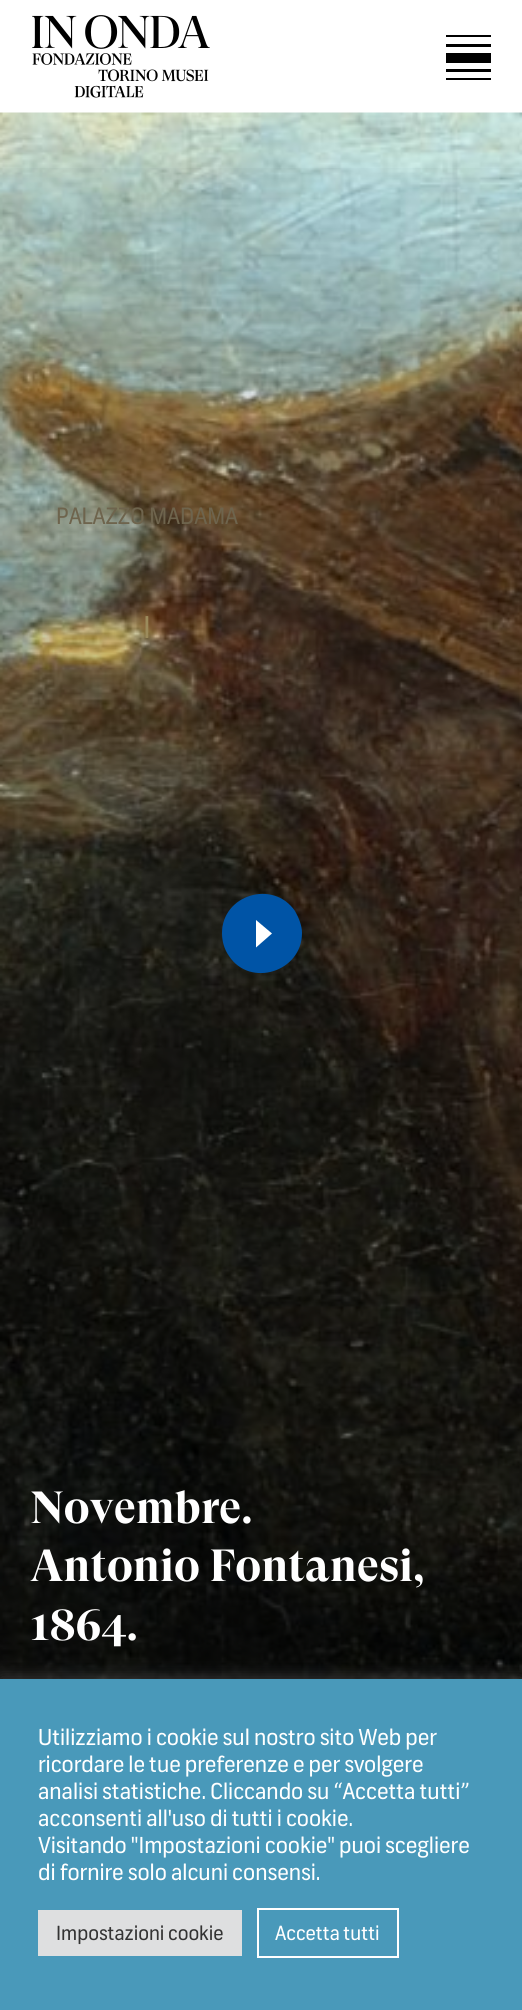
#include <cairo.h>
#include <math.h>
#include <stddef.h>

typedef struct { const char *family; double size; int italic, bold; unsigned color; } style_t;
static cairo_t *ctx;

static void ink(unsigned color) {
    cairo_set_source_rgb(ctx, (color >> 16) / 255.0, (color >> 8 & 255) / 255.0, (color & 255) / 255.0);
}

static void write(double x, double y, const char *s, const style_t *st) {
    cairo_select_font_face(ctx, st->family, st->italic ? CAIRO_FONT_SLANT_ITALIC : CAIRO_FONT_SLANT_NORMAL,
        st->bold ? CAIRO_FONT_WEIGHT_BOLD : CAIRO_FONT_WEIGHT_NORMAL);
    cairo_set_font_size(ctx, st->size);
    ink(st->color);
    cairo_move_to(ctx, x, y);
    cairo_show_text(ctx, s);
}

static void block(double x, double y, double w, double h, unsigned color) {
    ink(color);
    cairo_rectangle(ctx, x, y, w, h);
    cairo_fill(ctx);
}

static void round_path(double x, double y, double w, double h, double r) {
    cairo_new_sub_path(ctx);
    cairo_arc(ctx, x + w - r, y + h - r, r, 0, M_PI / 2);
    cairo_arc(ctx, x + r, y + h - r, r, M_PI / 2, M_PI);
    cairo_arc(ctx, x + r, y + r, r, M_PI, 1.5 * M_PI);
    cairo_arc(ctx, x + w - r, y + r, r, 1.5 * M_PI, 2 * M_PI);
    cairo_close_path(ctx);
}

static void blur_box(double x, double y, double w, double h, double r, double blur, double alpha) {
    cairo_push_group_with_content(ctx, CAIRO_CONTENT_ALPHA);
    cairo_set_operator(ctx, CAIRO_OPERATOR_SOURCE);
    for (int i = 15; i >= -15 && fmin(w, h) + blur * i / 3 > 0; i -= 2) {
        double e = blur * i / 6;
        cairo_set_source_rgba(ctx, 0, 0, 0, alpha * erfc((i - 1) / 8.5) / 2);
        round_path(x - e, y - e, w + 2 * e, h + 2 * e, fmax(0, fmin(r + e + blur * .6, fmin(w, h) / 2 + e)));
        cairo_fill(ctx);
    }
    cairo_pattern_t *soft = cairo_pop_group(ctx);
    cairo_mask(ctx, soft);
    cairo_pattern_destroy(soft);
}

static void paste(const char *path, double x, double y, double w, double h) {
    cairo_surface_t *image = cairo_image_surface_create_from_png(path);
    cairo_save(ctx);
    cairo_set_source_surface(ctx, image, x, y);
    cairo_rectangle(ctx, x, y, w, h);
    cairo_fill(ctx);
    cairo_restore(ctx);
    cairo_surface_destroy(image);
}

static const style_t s1 = {"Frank", 22.5, 0, 0, 0x6e644d};
static const style_t s2 = {"Frank", 30, 0, 0, 0x9b8b5c};
static const style_t s3 = {"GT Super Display", 45, 0, 1, 0xffffff};
static const style_t s4 = {"Frank", 22, 0, 0, 0xffffff};
static const style_t s5 = {"Frank", 19.5, 0, 0, 0x333333};
static const style_t s6 = {"Frank", 19.5, 0, 0, 0xffffff};

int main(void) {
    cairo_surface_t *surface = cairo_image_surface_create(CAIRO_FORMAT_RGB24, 522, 2010);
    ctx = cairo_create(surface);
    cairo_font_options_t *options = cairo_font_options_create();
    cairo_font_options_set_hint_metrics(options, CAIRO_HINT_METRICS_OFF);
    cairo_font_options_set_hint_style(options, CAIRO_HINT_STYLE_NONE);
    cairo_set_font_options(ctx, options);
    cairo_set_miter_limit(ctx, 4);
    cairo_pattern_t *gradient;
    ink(0xffffff);
    cairo_paint(ctx);
    paste("pic1.png", 32, 15, 178, 83);
    block(446, 35, 45, 2, 0x000000);
    block(446, 53, 45, 10, 0x000000);
    block(446, 44, 45, 3, 0x000000);
    block(446, 69, 45, 3, 0x000000);
    block(446, 78, 45, 2, 0x000000);
    paste("pic2.png", 0, 112, 522, 1567);
    gradient = cairo_pattern_create_linear(261, 113, 261, 1904);
    cairo_pattern_add_color_stop_rgba(gradient, 0, 0, 0, 0, 0);
    cairo_pattern_add_color_stop_rgba(gradient, 1, 0, 0, 0, 0.7);
    cairo_set_source(ctx, gradient);
    cairo_pattern_destroy(gradient);
    cairo_rectangle(ctx, 0, 168, 522, 1511);
    cairo_fill(ctx);
    write(56, 524, "PALAZZO MADAMA", &s1);
    write(143, 638, "I", &s2);
    ink(0x0054a6);
    cairo_new_path(ctx);
    cairo_move_to(ctx, 302, 933);
    cairo_curve_to(ctx, 302, 972, 250, 988, 229, 956);
    cairo_curve_to(ctx, 224, 949, 222, 941, 222, 933);
    cairo_curve_to(ctx, 222, 895, 273, 879, 295, 911);
    cairo_curve_to(ctx, 299, 918, 302, 926, 302, 933);
    cairo_close_path(ctx);
    cairo_fill(ctx);
    ink(0xffffff);
    cairo_new_path(ctx);
    cairo_move_to(ctx, 272, 933.5);
    cairo_line_to(ctx, 256, 920);
    cairo_line_to(ctx, 256, 947.5);
    cairo_close_path(ctx);
    cairo_fill(ctx);
    write(30, 1523, "Novembre.", &s3);
    write(30, 1581, "Antonio Fontanesi,", &s3);
    write(30, 1640, "1864.", &s3);
    ink(0xacabab);
    blur_box(0, 1677, 522, 332, 0, 7.5, 0.3);
    block(0, 1679, 522, 331, 0x4999ba);
    write(38, 1745, "Utilizziamo i cookie sul nostro sito Web per", &s4);
    write(38, 1772, "ricordare le tue preferenze e per svolgere", &s4);
    write(38, 1799, "analisi statistiche. Cliccando su “Accetta tutti”", &s4);
    write(38, 1826, "acconsenti all'uso di tutti i cookie.", &s4);
    write(38, 1853, "Visitando \"Impostazioni cookie\" puoi scegliere", &s4);
    write(38, 1880, "di fornire solo alcuni consensi.", &s4);
    block(38, 1910, 204, 46, 0xdedfe0);
    write(56, 1940, "Impostazioni cookie", &s5);
    cairo_rectangle(ctx, 258, 1909, 140, 48);
    ink(0xffffff);
    cairo_stroke(ctx);
    write(275, 1940, "Accetta tutti", &s6);
    cairo_surface_write_to_png(surface, "screenshot.png");
    cairo_font_options_destroy(options);
    cairo_destroy(ctx);
    cairo_surface_destroy(surface);
    return 0;
}
